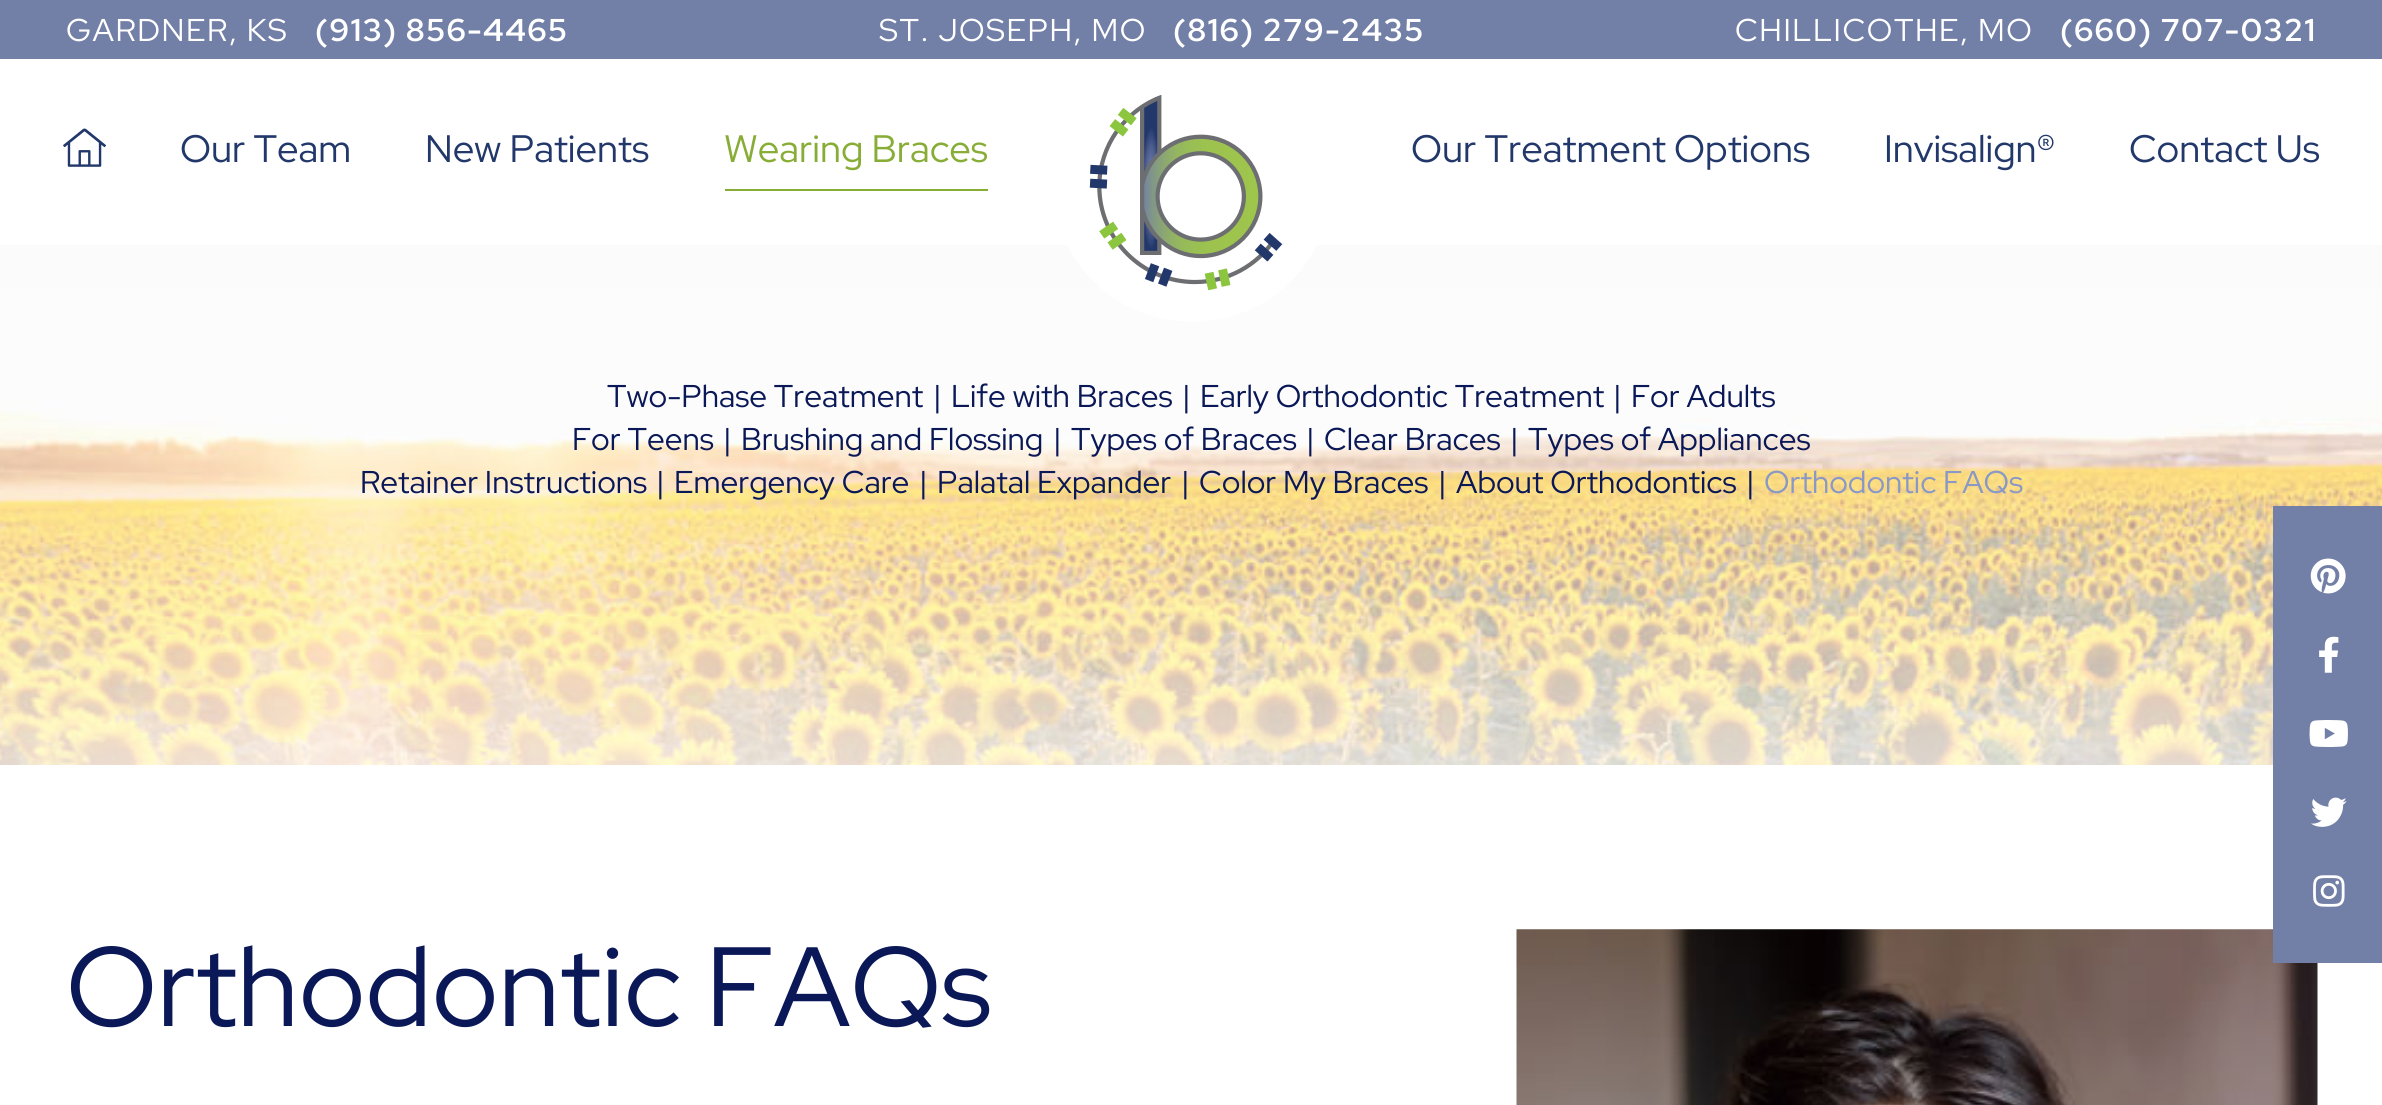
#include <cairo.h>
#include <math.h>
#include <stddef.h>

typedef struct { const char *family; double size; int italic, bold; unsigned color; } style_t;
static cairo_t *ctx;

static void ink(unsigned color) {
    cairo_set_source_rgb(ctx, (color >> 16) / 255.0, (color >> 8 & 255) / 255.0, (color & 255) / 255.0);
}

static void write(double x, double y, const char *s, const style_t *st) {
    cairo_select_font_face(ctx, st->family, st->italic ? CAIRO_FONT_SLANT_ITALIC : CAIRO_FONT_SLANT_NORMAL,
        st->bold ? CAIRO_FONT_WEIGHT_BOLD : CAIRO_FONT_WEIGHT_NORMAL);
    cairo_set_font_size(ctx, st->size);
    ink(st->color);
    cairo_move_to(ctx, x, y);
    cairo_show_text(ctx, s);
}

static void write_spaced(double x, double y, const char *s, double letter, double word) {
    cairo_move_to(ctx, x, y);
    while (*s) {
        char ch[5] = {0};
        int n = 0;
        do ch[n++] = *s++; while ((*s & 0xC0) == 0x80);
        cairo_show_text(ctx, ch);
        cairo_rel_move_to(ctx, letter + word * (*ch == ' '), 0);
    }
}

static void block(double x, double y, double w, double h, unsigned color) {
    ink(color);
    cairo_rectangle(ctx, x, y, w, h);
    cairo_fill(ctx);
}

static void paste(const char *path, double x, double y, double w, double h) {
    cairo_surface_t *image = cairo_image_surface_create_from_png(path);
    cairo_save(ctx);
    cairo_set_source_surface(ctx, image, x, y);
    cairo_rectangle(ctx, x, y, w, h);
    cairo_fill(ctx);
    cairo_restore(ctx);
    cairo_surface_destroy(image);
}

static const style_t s1 = {"Red Hat Display", 38.25, 0, 0, 0x22376a};
static const style_t s2 = {"Red Hat Display", 38.25, 0, 0, 0x88ad37};
static const style_t s3 = {"Red Hat Display", 31.5, 0, 0, 0x0a1857};
static const style_t s4 = {"Red Hat Display", 31.5, 0, 0, 0x8998c6};
static const style_t s5 = {"Red Hat Display", 112.5, 0, 0, 0x0a1857};

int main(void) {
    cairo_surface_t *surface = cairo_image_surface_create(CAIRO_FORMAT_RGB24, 2382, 1105);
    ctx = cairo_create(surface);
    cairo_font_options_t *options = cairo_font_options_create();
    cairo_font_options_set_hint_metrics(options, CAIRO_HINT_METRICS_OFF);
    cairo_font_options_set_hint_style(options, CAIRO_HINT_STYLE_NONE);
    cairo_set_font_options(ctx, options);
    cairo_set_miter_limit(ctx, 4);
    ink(0xffffff);
    cairo_paint(ctx);
    paste("pic8.png", 0, 245, 2382, 520);
    ink(0xffffff);
    cairo_new_path(ctx);
    cairo_move_to(ctx, 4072, -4);
    cairo_line_to(ctx, -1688, -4);
    cairo_line_to(ctx, -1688, 243);
    cairo_line_to(ctx, 1066, 243);
    cairo_curve_to(ctx, 1118, 348, 1267, 348, 1318, 243);
    cairo_line_to(ctx, 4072, 243);
    cairo_close_path(ctx);
    cairo_fill(ctx);
    block(0, 0, 2382, 59, 0x727fa6);
    cairo_select_font_face(ctx, "Red Hat Display", CAIRO_FONT_SLANT_NORMAL, CAIRO_FONT_WEIGHT_NORMAL);
    cairo_set_font_size(ctx, 31.5);
    ink(0xffffff);
    write_spaced(66, 41, "GARDNER, KS", 1.6, 0);
    cairo_select_font_face(ctx, "Red Hat Display", CAIRO_FONT_SLANT_NORMAL, CAIRO_FONT_WEIGHT_BOLD);
    write_spaced(315, 41, "(913) 856-4465", 1.6, 0);
    cairo_select_font_face(ctx, "Red Hat Display", CAIRO_FONT_SLANT_NORMAL, CAIRO_FONT_WEIGHT_NORMAL);
    write_spaced(879, 41, "ST. JOSEPH, MO", 1.6, 0);
    cairo_select_font_face(ctx, "Red Hat Display", CAIRO_FONT_SLANT_NORMAL, CAIRO_FONT_WEIGHT_BOLD);
    write_spaced(1173, 41, "(816) 279-2435", 1.6, 0);
    cairo_select_font_face(ctx, "Red Hat Display", CAIRO_FONT_SLANT_NORMAL, CAIRO_FONT_WEIGHT_NORMAL);
    write_spaced(1735, 41, "CHILLICOTHE, MO", 1.6, 0);
    cairo_select_font_face(ctx, "Red Hat Display", CAIRO_FONT_SLANT_NORMAL, CAIRO_FONT_WEIGHT_BOLD);
    write_spaced(2060, 41, "(660) 707-0321", 1.6, 0);
    paste("pic1.png", 1089, 95, 194, 196);
    paste("pic2.png", 63, 128, 43, 39);
    write(180, 162, "Our Team", &s1);
    write(425, 162, "New Patients", &s1);
    write(724, 162, "Wearing Braces", &s2);
    block(725, 189, 263, 2, 0x88ad37);
    write(1411, 162, "Our Treatment Options", &s1);
    write(1884, 162, "Invisalign®", &s1);
    write(2129, 162, "Contact Us", &s1);
    paste("pic9.png", 1516, 929, 802, 176);
    block(2273, 506, 109, 457, 0x727fa6);
    paste("pic3.png", 2310, 558, 36, 36);
    paste("pic4.png", 2319, 636, 20, 37);
    paste("pic5.png", 2309, 720, 39, 27);
    paste("pic6.png", 2311, 797, 36, 30);
    paste("pic7.png", 2313, 875, 32, 32);
    write(607, 407, "Two-Phase Treatment", &s3);
    write(933, 407, "|", &s3);
    write(951, 407, "Life with Braces", &s3);
    write(1182, 407, "|", &s3);
    write(1200, 407, "Early Orthodontic Treatment", &s3);
    write(1613, 407, "|", &s3);
    write(1631, 407, "For Adults", &s3);
    write(572, 450, "For Teens", &s3);
    write(723, 450, "|", &s3);
    write(741, 450, "Brushing and Flossing", &s3);
    write(1053, 450, "|", &s3);
    write(1071, 450, "Types of Braces", &s3);
    write(1306, 450, "|", &s3);
    write(1324, 450, "Clear Braces", &s3);
    write(1510, 450, "|", &s3);
    write(1528, 450, "Types of Appliances", &s3);
    write(360, 493, "Retainer Instructions", &s3);
    write(656, 493, "|", &s3);
    write(674, 493, "Emergency Care", &s3);
    write(919, 493, "|", &s3);
    write(937, 493, "Palatal Expander", &s3);
    write(1181, 493, "|", &s3);
    write(1199, 493, "Color My Braces", &s3);
    write(1438, 493, "|", &s3);
    write(1456, 493, "About Orthodontics", &s3);
    write(1746, 493, "|", &s3);
    write(1764, 493, "Orthodontic FAQs", &s4);
    write(66, 1026, "Orthodontic FAQs", &s5);
    cairo_surface_write_to_png(surface, "screenshot.png");
    cairo_font_options_destroy(options);
    cairo_destroy(ctx);
    cairo_surface_destroy(surface);
    return 0;
}
